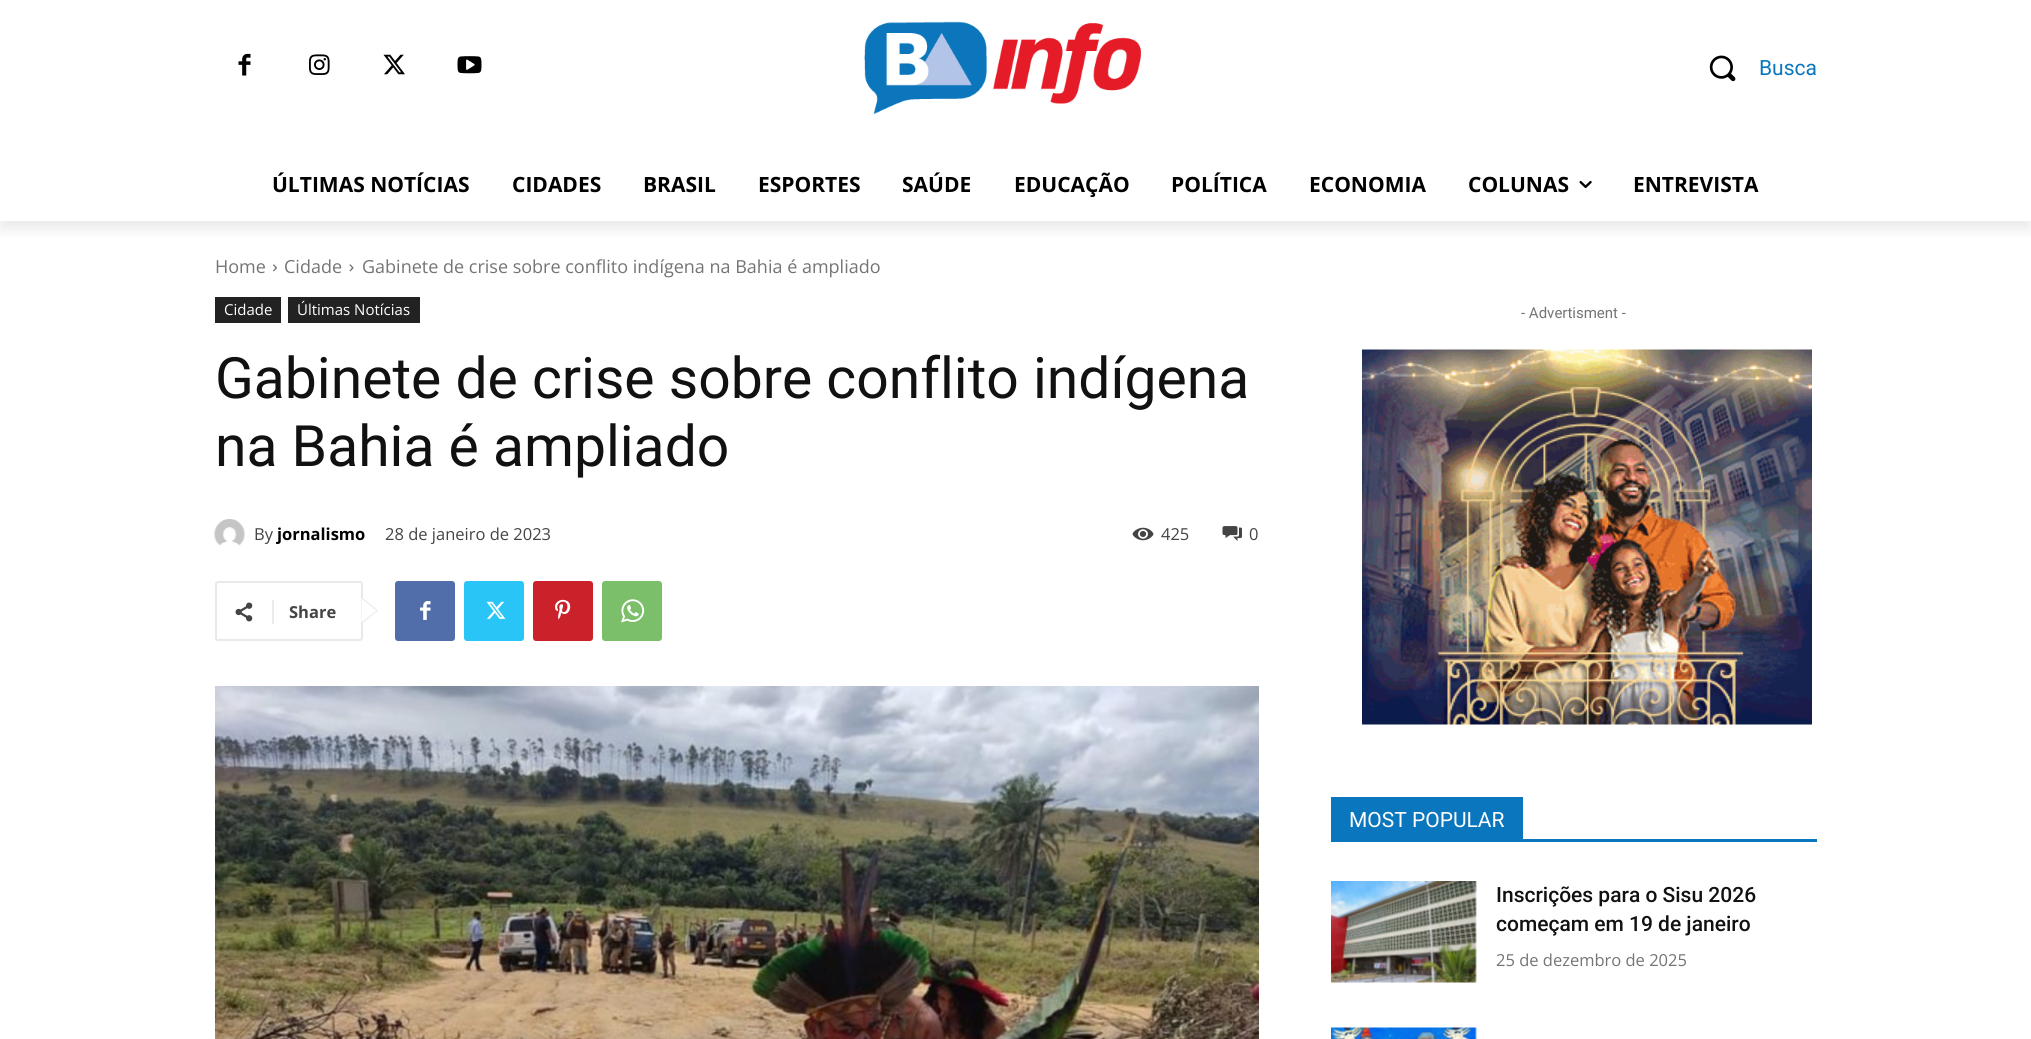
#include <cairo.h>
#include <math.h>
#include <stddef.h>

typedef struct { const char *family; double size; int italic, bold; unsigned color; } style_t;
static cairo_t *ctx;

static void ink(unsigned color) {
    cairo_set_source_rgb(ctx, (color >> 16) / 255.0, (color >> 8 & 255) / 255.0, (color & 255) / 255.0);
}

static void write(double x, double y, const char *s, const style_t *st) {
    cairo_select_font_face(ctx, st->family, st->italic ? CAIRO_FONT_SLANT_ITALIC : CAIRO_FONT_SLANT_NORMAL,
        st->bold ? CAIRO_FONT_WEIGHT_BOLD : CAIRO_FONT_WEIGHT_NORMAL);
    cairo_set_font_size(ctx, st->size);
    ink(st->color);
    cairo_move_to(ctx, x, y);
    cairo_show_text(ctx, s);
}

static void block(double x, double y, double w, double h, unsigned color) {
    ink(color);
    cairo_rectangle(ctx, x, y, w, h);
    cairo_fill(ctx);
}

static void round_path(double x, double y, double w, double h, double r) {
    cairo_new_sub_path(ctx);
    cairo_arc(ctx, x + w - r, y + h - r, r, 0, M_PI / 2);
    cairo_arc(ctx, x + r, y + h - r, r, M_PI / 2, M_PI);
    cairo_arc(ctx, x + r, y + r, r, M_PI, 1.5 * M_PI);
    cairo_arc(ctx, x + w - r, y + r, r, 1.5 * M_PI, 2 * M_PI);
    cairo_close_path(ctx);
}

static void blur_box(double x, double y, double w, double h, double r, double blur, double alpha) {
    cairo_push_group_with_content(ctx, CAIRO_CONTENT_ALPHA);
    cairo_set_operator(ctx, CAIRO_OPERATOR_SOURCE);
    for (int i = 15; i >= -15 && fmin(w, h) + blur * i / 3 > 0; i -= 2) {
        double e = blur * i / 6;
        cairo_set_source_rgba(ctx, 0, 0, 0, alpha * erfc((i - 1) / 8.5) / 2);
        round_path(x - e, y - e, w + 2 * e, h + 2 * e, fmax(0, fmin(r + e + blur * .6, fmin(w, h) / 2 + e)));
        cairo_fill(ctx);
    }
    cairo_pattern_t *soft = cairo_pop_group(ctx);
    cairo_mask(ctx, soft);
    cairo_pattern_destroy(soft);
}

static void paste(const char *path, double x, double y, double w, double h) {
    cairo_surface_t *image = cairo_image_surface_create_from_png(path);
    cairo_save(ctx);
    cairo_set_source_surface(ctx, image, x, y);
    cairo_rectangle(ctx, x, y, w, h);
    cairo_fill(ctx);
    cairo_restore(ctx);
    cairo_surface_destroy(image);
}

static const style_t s1 = {"Roboto", 21, 0, 0, 0x0a76bd};
static const style_t s2 = {"Open Sans", 21, 0, 1, 0x000000};
static const style_t s3 = {"Open Sans", 18, 0, 0, 0x747474};
static const style_t s4 = {"Open Sans", 15, 0, 0, 0xffffff};
static const style_t s5 = {"Roboto", 57, 0, 0, 0x111111};
static const style_t s6 = {"Open Sans", 16.5, 0, 0, 0x444444};
static const style_t s7 = {"Open Sans", 16.5, 0, 1, 0x000000};
static const style_t s8 = {"Open Sans", 16.5, 0, 1, 0x444444};
static const style_t s9 = {"Roboto", 15, 0, 0, 0x747474};
static const style_t s10 = {"Roboto", 21, 0, 0, 0xffffff};
static const style_t s11 = {"Roboto Medium", 21, 0, 0, 0x111111};
static const style_t s12 = {"Open Sans", 16.5, 0, 0, 0x747474};

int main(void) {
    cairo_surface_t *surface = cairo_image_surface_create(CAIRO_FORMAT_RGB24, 2031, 1039);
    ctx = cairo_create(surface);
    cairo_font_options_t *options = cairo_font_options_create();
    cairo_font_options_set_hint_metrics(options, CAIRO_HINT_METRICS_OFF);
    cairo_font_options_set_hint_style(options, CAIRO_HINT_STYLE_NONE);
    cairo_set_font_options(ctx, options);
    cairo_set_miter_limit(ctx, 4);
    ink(0xffffff);
    cairo_paint(ctx);
    paste("pic1.png", 238, 53, 13, 23);
    paste("pic2.png", 309, 54, 21, 21);
    paste("pic3.png", 383, 54, 22, 21);
    paste("pic4.png", 457, 56, 25, 18);
    paste("pic5.png", 864, 21, 277, 93);
    cairo_save(ctx);
    cairo_set_fill_rule(ctx, CAIRO_FILL_RULE_EVEN_ODD);
    cairo_new_path(ctx);
    cairo_move_to(ctx, 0, 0);
    cairo_line_to(ctx, 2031, 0);
    cairo_line_to(ctx, 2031, 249);
    cairo_line_to(ctx, 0, 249);
    cairo_close_path(ctx);
    cairo_move_to(ctx, 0, 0);
    cairo_line_to(ctx, 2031, 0);
    cairo_line_to(ctx, 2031, 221);
    cairo_line_to(ctx, 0, 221);
    cairo_close_path(ctx);
    cairo_clip(ctx);
    ink(0x000000);
    blur_box(0, 9, 2031, 221, 0, 6, 0.08);
    cairo_restore(ctx);
    paste("pic6.png", 1709, 55, 27, 27);
    write(1759, 75, "Busca", &s1);
    write(272, 192, "ÚLTIMAS NOTÍCIAS", &s2);
    write(512, 192, "CIDADES", &s2);
    write(643, 192, "BRASIL", &s2);
    write(758, 192, "ESPORTES", &s2);
    write(902, 192, "SAÚDE", &s2);
    write(1014, 192, "EDUCAÇÃO", &s2);
    write(1171, 192, "POLÍTICA", &s2);
    write(1309, 192, "ECONOMIA", &s2);
    write(1468, 192, "COLUNAS", &s2);
    paste("pic7.png", 1579, 180, 13, 8);
    write(1633, 192, "ENTREVISTA", &s2);
    write(215, 273, "Home", &s3);
    paste("pic8.png", 273, 264, 4, 8);
    write(284, 273, "Cidade", &s3);
    paste("pic9.png", 349, 264, 5, 8);
    write(362, 273, "Gabinete de crise sobre conflito indígena na Bahia é ampliado", &s3);
    block(215, 297, 66, 26, 0x222222);
    write(224, 315, "Cidade", &s4);
    block(288, 297, 132, 26, 0x222222);
    write(297, 315, "Últimas Notícias", &s4);
    write(215, 398, "Gabinete de crise sobre conflito indígena", &s5);
    write(215, 466, "na Bahia é ampliado", &s5);
    paste("pic10.png", 214, 519, 31, 27);
    write(254, 540, "By", &s6);
    write(277, 540, "jornalismo", &s7);
    write(385, 540, "28 de janeiro de 2023", &s6);
    paste("pic11.png", 1132, 527, 22, 14);
    write(1161, 540, "425", &s6);
    paste("pic12.png", 1222, 526, 20, 15);
    write(1249, 540, "0", &s6);
    round_path(216, 582, 146, 58, 2);
    ink(0xe9e9e9);
    cairo_stroke(ctx);
    cairo_new_path(ctx);
    cairo_move_to(ctx, 361.5, 624);
    cairo_line_to(ctx, 361.5, 597);
    cairo_line_to(ctx, 378, 610.5);
    cairo_close_path(ctx);
    cairo_fill(ctx);
    paste("pic13.png", 235, 602, 18, 20);
    block(272, 600, 2, 24, 0xebebeb);
    write(289, 618, "Share", &s8);
    ink(0xffffff);
    cairo_new_path(ctx);
    cairo_move_to(ctx, 361.5, 622.5);
    cairo_line_to(ctx, 361.5, 598.5);
    cairo_line_to(ctx, 376.5, 610.5);
    cairo_close_path(ctx);
    cairo_fill(ctx);
    ink(0x516eab);
    round_path(395, 581, 60, 60, 3);
    cairo_fill(ctx);
    paste("pic14.png", 420, 601, 11, 19);
    ink(0x29c5f6);
    round_path(464, 581, 60, 60, 3);
    cairo_fill(ctx);
    paste("pic15.png", 486, 601, 20, 18);
    ink(0xca212a);
    round_path(533, 581, 60, 60, 3);
    cairo_fill(ctx);
    paste("pic16.png", 555, 599, 16, 21);
    ink(0x7bbf6a);
    round_path(602, 581, 60, 60, 3);
    cairo_fill(ctx);
    paste("pic17.png", 621, 599, 24, 24);
    paste("pic18.png", 215, 686, 1044, 353);
    write(1521, 318, "- Advertisment -", &s9);
    paste("pic19.png", 1362, 349, 450, 376);
    block(1331, 839, 486, 3, 0x0a76bd);
    block(1331, 797, 192, 42, 0x0a76bd);
    write(1349, 827, "MOST POPULAR", &s10);
    paste("pic20.png", 1331, 881, 146, 102);
    write(1496, 902, "Inscrições para o Sisu 2026", &s11);
    write(1496, 931, "começam em 19 de janeiro", &s11);
    write(1496, 966, "25 de dezembro de 2025", &s12);
    paste("pic21.png", 1331, 1027, 146, 12);
    cairo_surface_write_to_png(surface, "screenshot.png");
    cairo_font_options_destroy(options);
    cairo_destroy(ctx);
    cairo_surface_destroy(surface);
    return 0;
}
